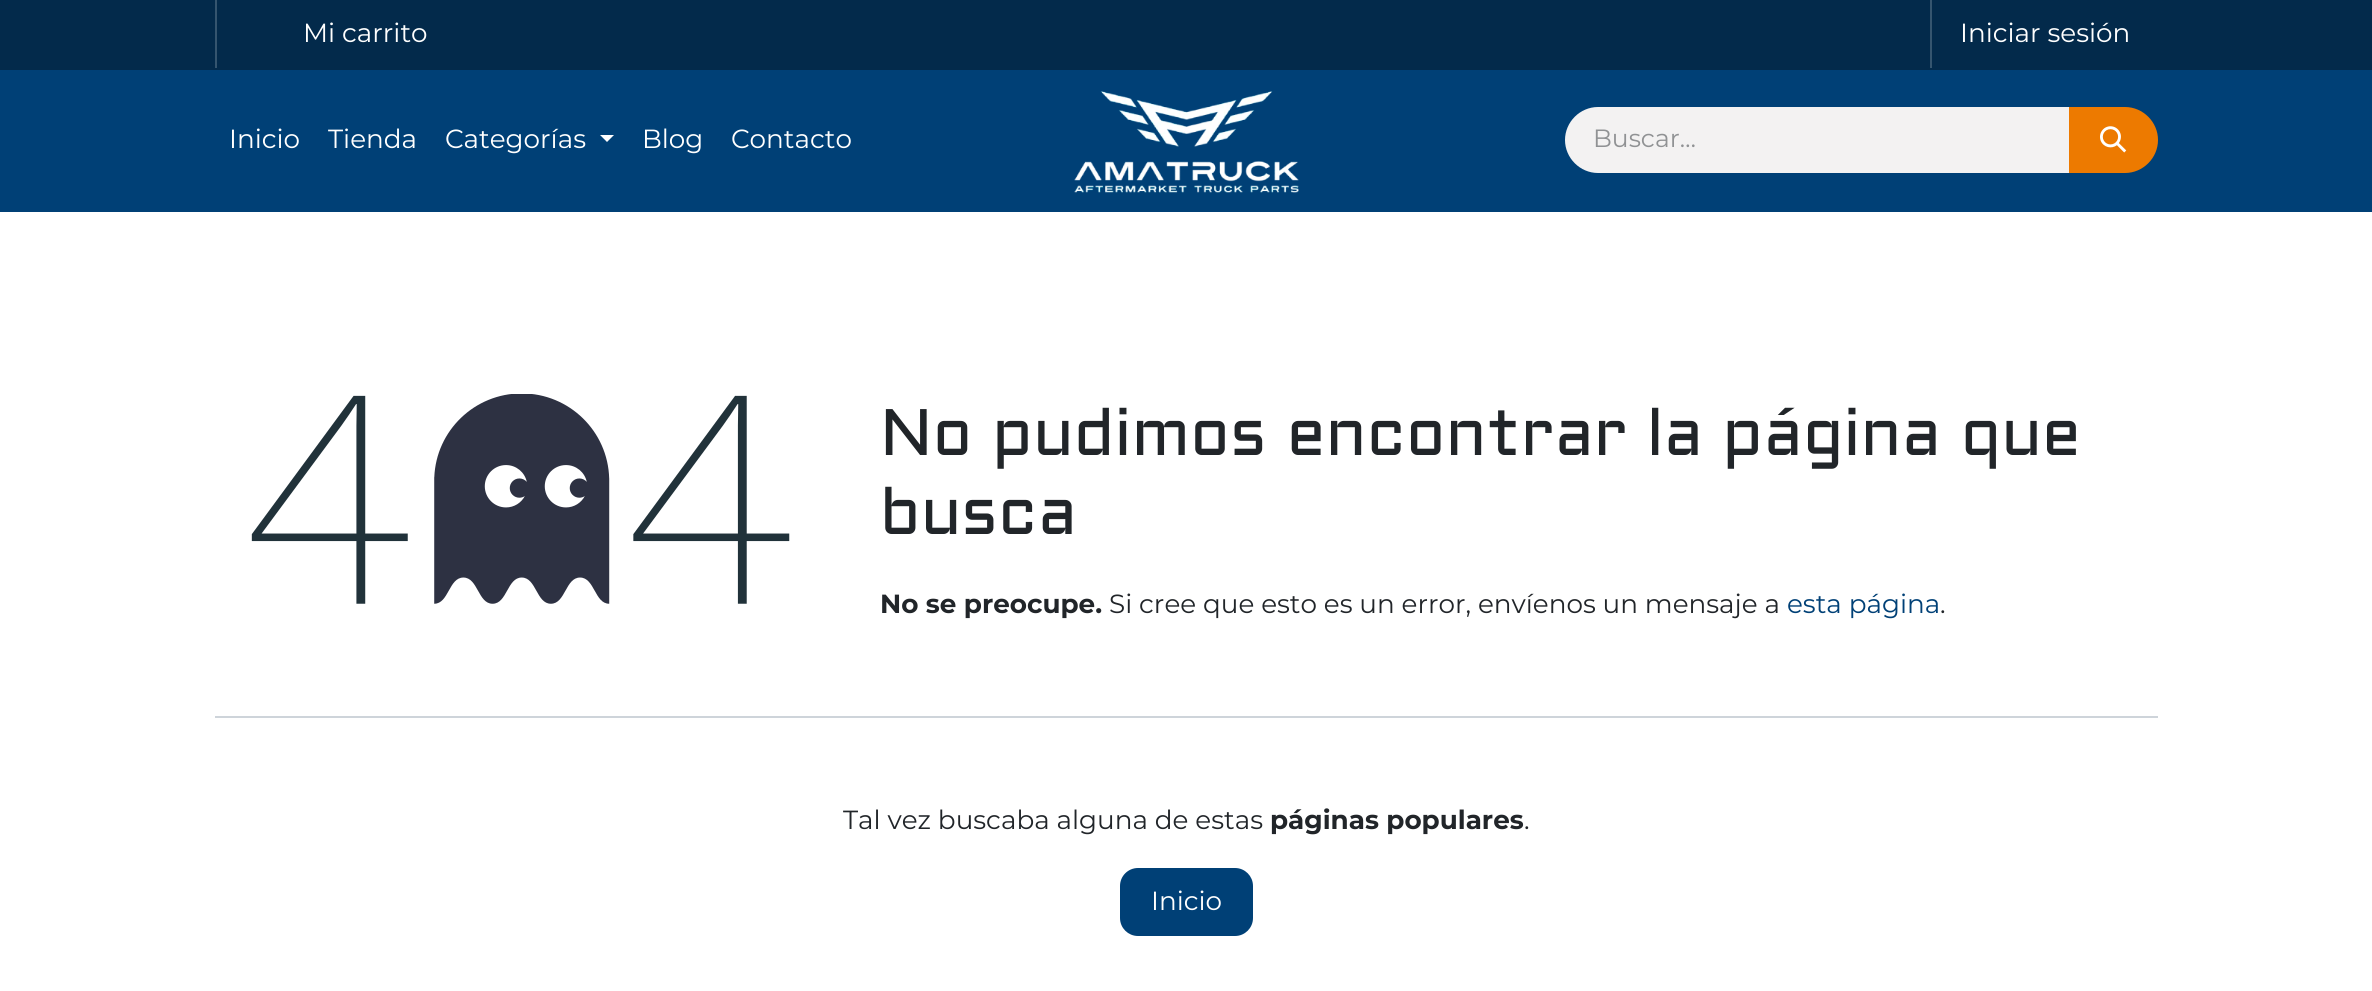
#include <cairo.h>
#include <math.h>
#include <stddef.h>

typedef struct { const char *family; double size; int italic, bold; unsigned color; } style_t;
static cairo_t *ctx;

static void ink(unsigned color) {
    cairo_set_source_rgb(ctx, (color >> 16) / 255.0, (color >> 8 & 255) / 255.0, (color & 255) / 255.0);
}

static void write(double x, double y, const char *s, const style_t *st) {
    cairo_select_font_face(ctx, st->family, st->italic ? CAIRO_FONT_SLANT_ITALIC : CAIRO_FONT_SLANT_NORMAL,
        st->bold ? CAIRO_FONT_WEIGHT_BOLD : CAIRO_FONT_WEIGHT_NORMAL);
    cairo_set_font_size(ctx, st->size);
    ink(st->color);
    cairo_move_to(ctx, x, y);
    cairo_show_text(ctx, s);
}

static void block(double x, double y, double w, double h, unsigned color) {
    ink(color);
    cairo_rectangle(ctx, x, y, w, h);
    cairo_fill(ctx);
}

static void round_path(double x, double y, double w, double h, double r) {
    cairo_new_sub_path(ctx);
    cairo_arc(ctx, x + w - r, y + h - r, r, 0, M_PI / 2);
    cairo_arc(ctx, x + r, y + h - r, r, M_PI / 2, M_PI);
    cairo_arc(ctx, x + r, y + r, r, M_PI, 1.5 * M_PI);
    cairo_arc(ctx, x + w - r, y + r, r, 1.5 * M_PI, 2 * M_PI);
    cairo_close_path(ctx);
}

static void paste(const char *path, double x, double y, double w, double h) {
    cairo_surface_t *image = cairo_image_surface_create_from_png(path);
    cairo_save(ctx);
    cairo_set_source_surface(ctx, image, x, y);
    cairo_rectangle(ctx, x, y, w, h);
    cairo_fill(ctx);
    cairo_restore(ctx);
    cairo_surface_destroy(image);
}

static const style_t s1 = {"Montserrat", 26.25, 0, 0, 0xffffff};
static const style_t s2 = {"Montserrat", 25, 0, 0, 0x909294};
static const style_t s3 = {"Aldrich", 65.6, 0, 0, 0x212529};
static const style_t s4 = {"Montserrat", 26.25, 0, 1, 0x212529};
static const style_t s5 = {"Montserrat", 26.25, 0, 0, 0x212529};
static const style_t s6 = {"Montserrat", 26.25, 0, 0, 0x004076};

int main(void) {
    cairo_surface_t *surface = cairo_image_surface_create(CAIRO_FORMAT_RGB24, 2372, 991);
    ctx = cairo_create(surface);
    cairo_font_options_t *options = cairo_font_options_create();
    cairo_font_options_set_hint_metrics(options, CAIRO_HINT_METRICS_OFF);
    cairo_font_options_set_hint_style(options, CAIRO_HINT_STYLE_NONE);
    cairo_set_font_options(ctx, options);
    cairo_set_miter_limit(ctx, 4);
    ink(0xffffff);
    cairo_paint(ctx);
    block(0, 70, 2372, 142, 0x004076);
    block(0, 0, 2372, 70, 0x032a4b);
    block(215, 0, 2, 68, 0x35556f);
    write(303, 42, "Mi carrito", &s1);
    block(1930, 0, 2, 68, 0x35556f);
    write(1960, 42, "Iniciar sesión", &s1);
    write(229, 148, "Inicio", &s1);
    write(328, 148, "Tienda", &s1);
    write(445, 148, "Categorías", &s1);
    cairo_new_path(ctx);
    cairo_move_to(ctx, 600, 135);
    cairo_line_to(ctx, 614, 135);
    cairo_line_to(ctx, 607, 142);
    cairo_close_path(ctx);
    cairo_fill(ctx);
    write(642, 148, "Blog", &s1);
    write(731, 148, "Contacto", &s1);
    paste("pic1.png", 1074, 91, 225, 102);
    ink(0xf3f2f2);
    cairo_new_path(ctx);
    cairo_move_to(ctx, 1598, 107);
    cairo_line_to(ctx, 2070, 107);
    cairo_line_to(ctx, 2070, 173);
    cairo_line_to(ctx, 1598, 173);
    cairo_curve_to(ctx, 1580, 173, 1565, 158, 1565, 140);
    cairo_curve_to(ctx, 1565, 122, 1580, 107, 1598, 107);
    cairo_close_path(ctx);
    cairo_fill(ctx);
    write(1593, 147, "Buscar…", &s2);
    ink(0xed7a00);
    cairo_new_path(ctx);
    cairo_move_to(ctx, 2069, 107);
    cairo_line_to(ctx, 2125, 107);
    cairo_curve_to(ctx, 2143, 107, 2158, 122, 2158, 140);
    cairo_curve_to(ctx, 2158, 158, 2143, 173, 2125, 173);
    cairo_line_to(ctx, 2069, 173);
    cairo_close_path(ctx);
    cairo_fill(ctx);
    paste("pic2.png", 2100, 126, 27, 27);
    paste("pic3.png", 251, 394, 539, 210);
    write(880, 455, "No pudimos encontrar la página que", &s3);
    write(880, 534, "busca", &s3);
    write(880, 613, "No se preocupe.", &s4);
    write(1109, 613, "Si cree que esto es un error, envíenos un mensaje a", &s5);
    write(1787, 613, "esta página", &s6);
    write(1940, 613, ".", &s5);
    block(215, 716, 1943, 2, 0xced4da);
    write(843, 829, "Tal vez buscaba alguna de estas", &s5);
    write(1270, 829, "páginas populares", &s4);
    write(1524, 829, ".", &s5);
    ink(0x004076);
    round_path(1122, 870, 129, 64, 16);
    cairo_fill_preserve(ctx);
    cairo_set_line_width(ctx, 4);
    cairo_stroke(ctx);
    write(1151, 910, "Inicio", &s1);
    cairo_surface_write_to_png(surface, "screenshot.png");
    cairo_font_options_destroy(options);
    cairo_destroy(ctx);
    cairo_surface_destroy(surface);
    return 0;
}
